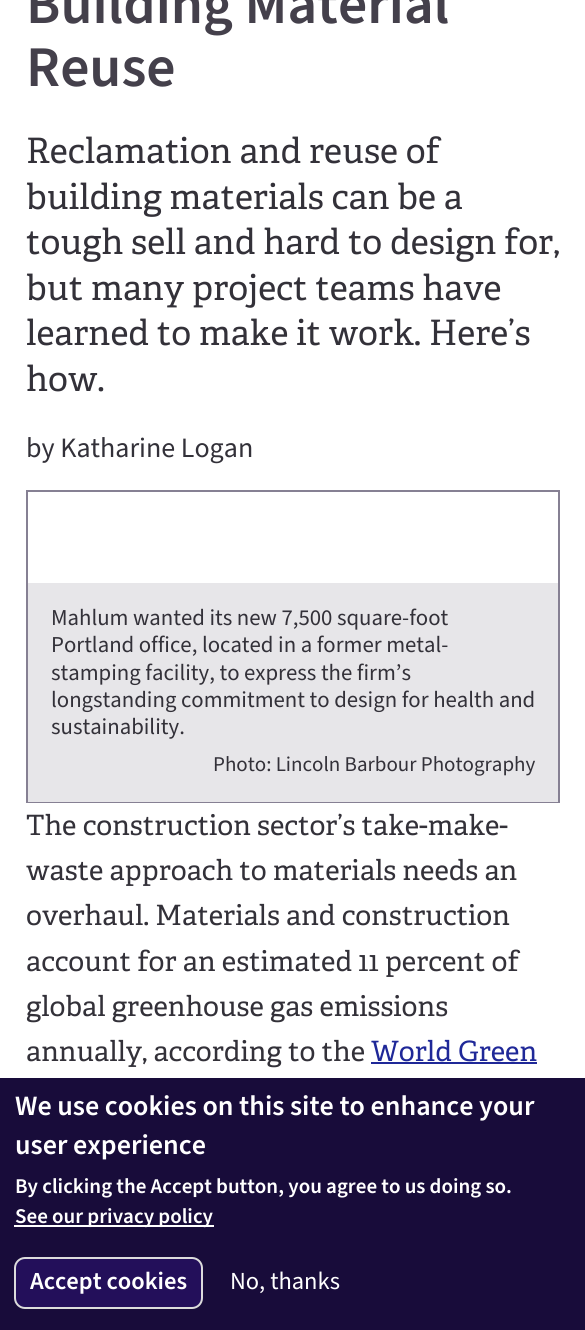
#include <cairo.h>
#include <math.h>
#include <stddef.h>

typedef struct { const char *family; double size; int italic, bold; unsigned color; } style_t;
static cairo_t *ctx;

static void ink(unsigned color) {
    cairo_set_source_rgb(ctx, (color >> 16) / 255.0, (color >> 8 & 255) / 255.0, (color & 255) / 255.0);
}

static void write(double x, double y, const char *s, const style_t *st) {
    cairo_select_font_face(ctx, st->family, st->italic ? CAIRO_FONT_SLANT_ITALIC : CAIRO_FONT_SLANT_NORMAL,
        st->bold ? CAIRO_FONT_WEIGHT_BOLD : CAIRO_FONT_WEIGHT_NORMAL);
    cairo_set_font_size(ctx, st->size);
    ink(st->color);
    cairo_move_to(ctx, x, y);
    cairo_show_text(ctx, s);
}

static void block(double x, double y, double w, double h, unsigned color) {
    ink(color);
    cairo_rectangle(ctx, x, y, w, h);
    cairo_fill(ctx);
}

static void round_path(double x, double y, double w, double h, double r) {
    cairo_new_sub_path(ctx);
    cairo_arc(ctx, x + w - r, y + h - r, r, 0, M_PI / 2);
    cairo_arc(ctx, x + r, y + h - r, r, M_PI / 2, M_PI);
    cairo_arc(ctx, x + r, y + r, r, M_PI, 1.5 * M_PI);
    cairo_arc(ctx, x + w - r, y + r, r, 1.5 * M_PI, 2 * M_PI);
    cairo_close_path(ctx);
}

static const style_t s1 = {"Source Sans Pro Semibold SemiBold", 57.5, 0, 0, 0x44404b};
static const style_t s2 = {"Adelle", 35, 0, 0, 0x333139};
static const style_t s3 = {"Source Sans Pro", 28, 0, 0, 0x333139};
static const style_t s4 = {"Source Sans Pro", 22.75, 0, 0, 0x333139};
static const style_t s5 = {"Source Sans Pro", 21, 0, 0, 0x333139};
static const style_t s6 = {"Adelle", 28, 0, 0, 0x333139};
static const style_t s7 = {"Adelle", 28, 0, 0, 0x1f2898};
static const style_t s8 = {"Source Sans Pro Semibold SemiBold", 28, 0, 0, 0xffffff};
static const style_t s9 = {"Source Sans Pro Semibold SemiBold", 21, 0, 0, 0xffffff};
static const style_t s10 = {"Source Sans Pro Semibold SemiBold", 24.5, 0, 0, 0xffffff};
static const style_t s11 = {"Source Sans Pro", 24.5, 0, 0, 0xffffff};

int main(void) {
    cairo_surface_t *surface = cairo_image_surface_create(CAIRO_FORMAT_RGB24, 585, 1330);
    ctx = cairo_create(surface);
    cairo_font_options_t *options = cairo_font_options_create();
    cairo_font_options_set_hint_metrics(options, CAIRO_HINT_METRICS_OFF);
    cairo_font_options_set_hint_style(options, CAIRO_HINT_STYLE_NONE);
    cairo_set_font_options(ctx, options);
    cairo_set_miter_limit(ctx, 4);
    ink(0xffffff);
    cairo_paint(ctx);
    write(26, 23, "Building Material", &s1);
    write(26, 86, "Reuse", &s1);
    write(26, 163, "Reclamation and reuse of", &s2);
    write(26, 209, "building materials can be a", &s2);
    write(26, 254, "tough sell and hard to design for,", &s2);
    write(26, 300, "but many project teams have", &s2);
    write(26, 345, "learned to make it work. Here’s", &s2);
    write(26, 391, "how.", &s2);
    write(26, 457, "by Katharine Logan", &s3);
    cairo_rectangle(ctx, 27, 491, 532, 311);
    ink(0x868093);
    cairo_stroke(ctx);
    block(28, 583, 530, 219, 0xe7e6e9);
    write(51, 625, "Mahlum wanted its new 7,500 square-foot", &s4);
    write(51, 652, "Portland office, located in a former metal-", &s4);
    write(51, 680, "stamping facility, to express the firm’s", &s4);
    write(51, 707, "longstanding commitment to design for health and", &s4);
    write(51, 734, "sustainability.", &s4);
    write(213, 771, "Photo: Lincoln Barbour Photography", &s5);
    write(26, 835, "The construction sector’s take-make-", &s6);
    write(26, 880, "waste approach to materials needs an", &s6);
    write(26, 925, "overhaul. Materials and construction", &s6);
    write(26, 971, "account for an estimated 11 percent of", &s6);
    write(26, 1016, "global greenhouse gas emissions", &s6);
    write(26, 1061, "annually, according to the", &s6);
    write(371, 1061, "World Green", &s7);
    block(371, 1062, 166, 2, 0x1f2898);
    block(0, 1078, 585, 252, 0x180c3a);
    write(15, 1115, "We use cookies on this site to enhance your", &s8);
    write(15, 1154, "user experience", &s8);
    write(15, 1193, "By clicking the Accept button, you agree to us doing so.", &s9);
    block(14, 1225, 200, 2, 0xffffff);
    write(15, 1223, "See our privacy policy", &s9);
    ink(0x230f5a);
    round_path(15, 1258, 187, 50, 10);
    cairo_fill_preserve(ctx);
    ink(0xdcdcdc);
    cairo_stroke(ctx);
    write(30, 1289, "Accept cookies", &s10);
    write(230, 1289, "No, thanks", &s11);
    cairo_surface_write_to_png(surface, "screenshot.png");
    cairo_font_options_destroy(options);
    cairo_destroy(ctx);
    cairo_surface_destroy(surface);
    return 0;
}
